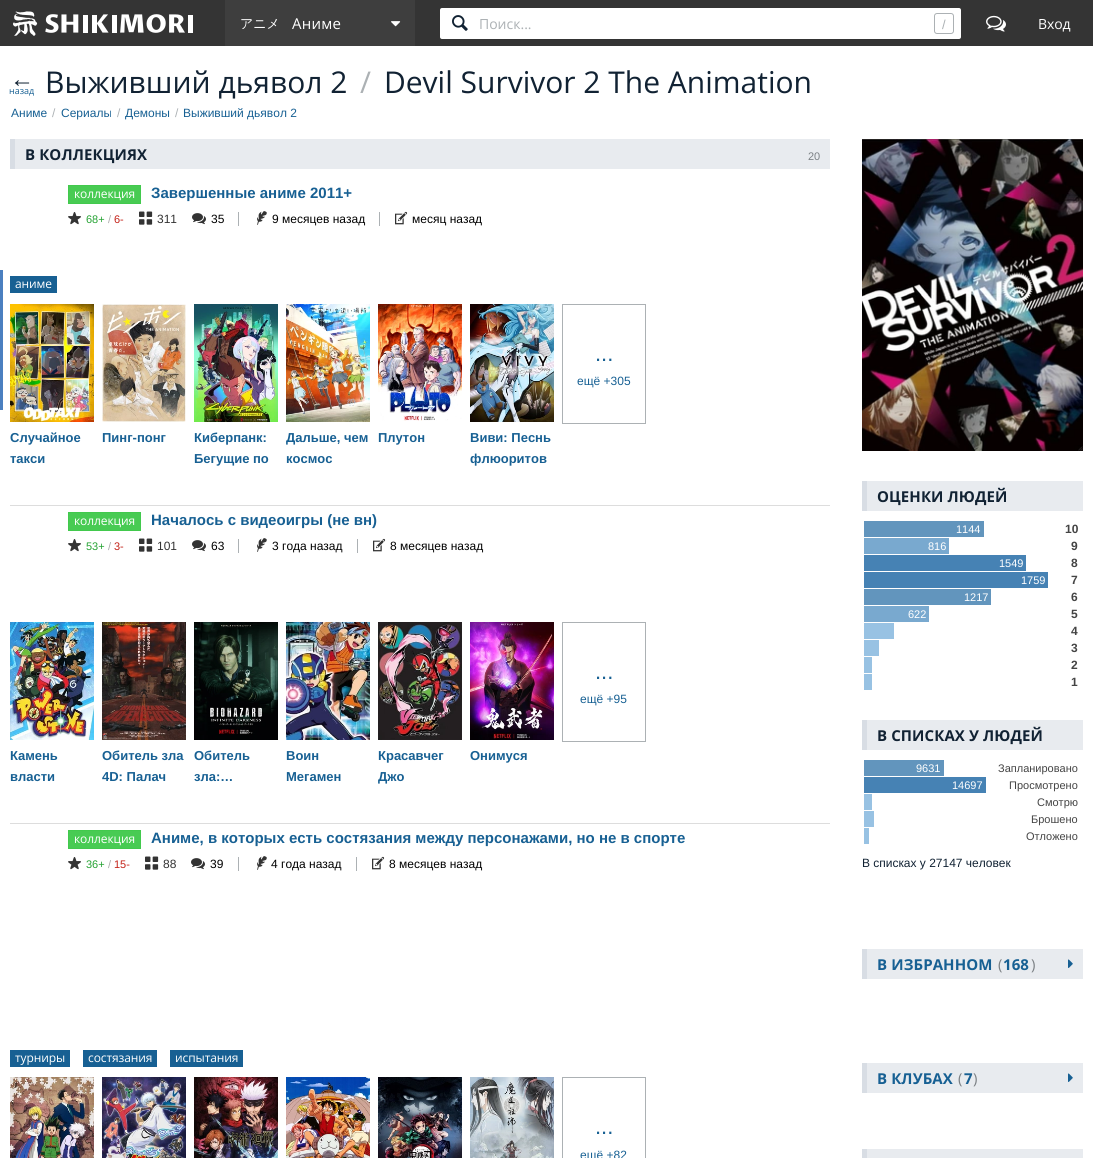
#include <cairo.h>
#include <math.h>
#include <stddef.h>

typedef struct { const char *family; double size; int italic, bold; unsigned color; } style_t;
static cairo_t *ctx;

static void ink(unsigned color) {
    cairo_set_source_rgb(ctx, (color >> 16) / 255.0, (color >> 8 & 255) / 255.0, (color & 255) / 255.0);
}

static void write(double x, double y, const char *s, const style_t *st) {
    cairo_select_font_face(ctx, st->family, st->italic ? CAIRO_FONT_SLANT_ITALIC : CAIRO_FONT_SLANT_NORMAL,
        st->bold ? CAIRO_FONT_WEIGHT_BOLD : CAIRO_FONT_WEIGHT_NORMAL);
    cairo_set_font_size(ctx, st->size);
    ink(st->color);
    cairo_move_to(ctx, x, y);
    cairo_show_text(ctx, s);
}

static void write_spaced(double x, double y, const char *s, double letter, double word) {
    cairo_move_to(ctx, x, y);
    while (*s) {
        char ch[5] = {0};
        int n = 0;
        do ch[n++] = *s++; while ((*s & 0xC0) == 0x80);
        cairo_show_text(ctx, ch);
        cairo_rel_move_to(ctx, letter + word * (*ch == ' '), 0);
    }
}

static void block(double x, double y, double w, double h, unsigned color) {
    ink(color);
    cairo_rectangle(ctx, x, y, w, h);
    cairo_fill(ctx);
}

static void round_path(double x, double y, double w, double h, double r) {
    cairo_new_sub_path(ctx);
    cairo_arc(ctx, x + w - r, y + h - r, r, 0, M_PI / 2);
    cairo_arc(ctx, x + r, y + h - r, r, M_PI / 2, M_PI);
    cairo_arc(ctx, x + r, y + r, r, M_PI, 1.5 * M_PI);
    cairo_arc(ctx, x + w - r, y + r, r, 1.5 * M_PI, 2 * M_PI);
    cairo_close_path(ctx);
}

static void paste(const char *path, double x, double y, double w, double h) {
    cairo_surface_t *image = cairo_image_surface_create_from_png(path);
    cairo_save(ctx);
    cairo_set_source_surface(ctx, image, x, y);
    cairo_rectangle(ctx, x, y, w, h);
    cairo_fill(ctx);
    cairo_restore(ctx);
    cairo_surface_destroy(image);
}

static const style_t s1 = {"Open Sans", 14, 0, 0, 0xacb1b4};
static const style_t s2 = {"Liberation Sans", 13, 0, 0, 0xacb1b4};
static const style_t s3 = {"Liberation Sans", 24, 0, 0, 0x112233};
static const style_t s4 = {"Open Sans", 9, 0, 0, 0x176093};
static const style_t s5 = {"Open Sans", 30, 0, 0, 0x112233};
static const style_t s6 = {"Open Sans", 30, 0, 0, 0xacb1b4};
static const style_t s7 = {"Liberation Sans", 12, 0, 0, 0x176093};
static const style_t s8 = {"Liberation Sans", 12, 0, 0, 0xacb1b4};
static const style_t s9 = {"Liberation Sans", 11, 0, 0, 0x7b8084};
static const style_t s10 = {"Liberation Sans", 15, 0, 1, 0x176093};
static const style_t s11 = {"Liberation Sans", 11, 0, 0, 0x24a232};
static const style_t s12 = {"Liberation Sans", 11, 0, 0, 0xaaaaaa};
static const style_t s13 = {"Liberation Sans", 11, 0, 0, 0xc32017};
static const style_t s14 = {"Liberation Sans", 12, 0, 0, 0x333333};
static const style_t s15 = {"Liberation Sans", 12, 0, 0, 0x000000};
static const style_t s16 = {"Liberation Sans", 22, 0, 0, 0x176093};
static const style_t s17 = {"Liberation Sans", 13, 0, 1, 0x176093};
static const style_t s18 = {"Liberation Sans", 11, 0, 0, 0xffffff};
static const style_t s19 = {"Liberation Sans", 12, 0, 1, 0x444444};
static const style_t s20 = {"Liberation Sans", 11, 0, 0, 0x444444};
static const style_t s21 = {"Liberation Sans", 12, 0, 0, 0x112233};

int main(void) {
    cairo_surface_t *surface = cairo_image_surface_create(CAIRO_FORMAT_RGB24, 1093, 1158);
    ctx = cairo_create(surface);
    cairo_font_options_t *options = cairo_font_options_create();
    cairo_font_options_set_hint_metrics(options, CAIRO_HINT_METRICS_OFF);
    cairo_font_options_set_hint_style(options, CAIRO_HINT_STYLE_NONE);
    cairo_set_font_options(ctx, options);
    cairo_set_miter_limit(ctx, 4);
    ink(0xffffff);
    cairo_paint(ctx);
    block(0, 0, 1093, 46, 0x343434);
    paste("pic1.png", 13, 11, 25, 25);
    paste("pic2.png", 45, 14, 148, 19);
    block(225, 0, 190, 46, 0x3e3e3e);
    cairo_select_font_face(ctx, "WenQuanYi Zen Hei Medium", CAIRO_FONT_SLANT_NORMAL, CAIRO_FONT_WEIGHT_NORMAL);
    cairo_set_font_size(ctx, 13);
    ink(0xffffff);
    write_spaced(240, 28, "アニメ", -0.1, 0);
    cairo_select_font_face(ctx, "Open Sans", CAIRO_FONT_SLANT_NORMAL, CAIRO_FONT_WEIGHT_NORMAL);
    cairo_set_font_size(ctx, 15);
    write_spaced(292, 29, "Аниме", 0.25, 0);
    paste("pic3.png", 391, 21, 10, 6);
    round_path(440, 8, 521, 31, 2);
    cairo_fill(ctx);
    paste("pic4.png", 452, 15, 16, 16);
    write(479, 29, "Поиск...", &s1);
    round_path(934.5, 13.5, 19, 20, 2.5);
    cairo_set_line_width(ctx, 1);
    cairo_stroke(ctx);
    write(942, 29, "/", &s2);
    paste("pic5.png", 986, 15, 20, 17);
    cairo_select_font_face(ctx, "Open Sans", CAIRO_FONT_SLANT_NORMAL, CAIRO_FONT_WEIGHT_NORMAL);
    cairo_set_font_size(ctx, 14);
    ink(0xffffff);
    write_spaced(1038, 29, "Вход", -0.1, 0);
    block(0, 270, 3, 140, 0x4b80c0);
    write(10, 87, "←", &s3);
    write(9, 94, "назад", &s4);
    write(45, 93, "Выживший дьявол 2", &s5);
    write(360, 93, "/", &s6);
    write(384, 93, "Devil Survivor 2 The Animation", &s5);
    write(11, 117, "Аниме", &s7);
    write(52, 117, "/", &s8);
    write(61, 117, "Сериалы", &s7);
    write(117, 117, "/", &s8);
    write(125, 117, "Демоны", &s7);
    write(175, 117, "/", &s8);
    write(183, 117, "Выживший дьявол 2", &s7);
    block(15, 139, 815, 30, 0xe8ebef);
    block(10, 139, 5, 30, 0xd8dde4);
    cairo_select_font_face(ctx, "Open Sans", CAIRO_FONT_SLANT_NORMAL, CAIRO_FONT_WEIGHT_BOLD);
    cairo_set_font_size(ctx, 15);
    ink(0x112233);
    write_spaced(25, 160, "В КОЛЛЕКЦИЯХ", 0.1, 0);
    write(808, 160, "20", &s9);
    ink(0x48cb53);
    cairo_rectangle(ctx, 68.5, 185.5, 72, 18);
    cairo_fill_preserve(ctx);
    ink(0x42c94d);
    cairo_stroke(ctx);
    cairo_select_font_face(ctx, "Open Sans", CAIRO_FONT_SLANT_NORMAL, CAIRO_FONT_WEIGHT_NORMAL);
    cairo_set_font_size(ctx, 12);
    ink(0xffffff);
    write_spaced(74, 198, "коллекция", -0.1, 0);
    write(151, 198, "Завершенные аниме 2011+", &s10);
    paste("pic6.png", 68, 212, 13, 13);
    write(86, 223, "68+", &s11);
    write(108, 223, "/", &s12);
    write(114, 223, "6-", &s13);
    paste("pic7.png", 139, 211, 14, 14);
    write(157, 223, "311", &s14);
    paste("pic8.png", 192, 213, 14, 12);
    write(211, 223, "35", &s15);
    block(238, 212, 1, 14, 0xacb1b4);
    paste("pic9.png", 257, 211, 10, 14);
    write(272, 223, "9 месяцев назад", &s15);
    block(379, 212, 1, 14, 0xacb1b4);
    paste("pic10.png", 395, 211, 13, 14);
    write(412, 223, "месяц назад", &s15);
    block(10, 276, 47, 17, 0x176093);
    cairo_select_font_face(ctx, "Open Sans", CAIRO_FONT_SLANT_NORMAL, CAIRO_FONT_WEIGHT_NORMAL);
    ink(0xffffff);
    write_spaced(15, 288, "аниме", -0.1, 0);
    cairo_rectangle(ctx, 562.5, 304.5, 83, 119);
    ink(0xacb1b4);
    cairo_stroke(ctx);
    write(595, 361, "...", &s16);
    write(577, 385, "ещё +305", &s7);
    paste("pic11.png", 10, 304, 84, 118);
    write(10, 442, "Случайное", &s17);
    write(10, 463, "такси", &s17);
    paste("pic12.png", 102, 304, 84, 118);
    write(102, 442, "Пинг-понг", &s17);
    paste("pic13.png", 194, 304, 84, 118);
    write(194, 442, "Киберпанк:", &s17);
    write(194, 463, "Бегущие по", &s17);
    paste("pic14.png", 286, 304, 84, 118);
    write(286, 442, "Дальше, чем", &s17);
    write(286, 463, "космос", &s17);
    paste("pic15.png", 378, 304, 84, 117);
    write(378, 442, "Плутон", &s17);
    paste("pic16.png", 470, 304, 84, 118);
    write(470, 442, "Виви: Песнь", &s17);
    write(470, 463, "флюоритов", &s17);
    block(10, 505, 820, 1, 0xdddddd);
    ink(0x48cb53);
    cairo_rectangle(ctx, 68.5, 512.5, 72, 18);
    cairo_fill_preserve(ctx);
    ink(0x42c94d);
    cairo_stroke(ctx);
    cairo_select_font_face(ctx, "Open Sans", CAIRO_FONT_SLANT_NORMAL, CAIRO_FONT_WEIGHT_NORMAL);
    cairo_set_font_size(ctx, 12);
    ink(0xffffff);
    write_spaced(74, 525, "коллекция", -0.1, 0);
    write(151, 525, "Началось с видеоигры (не вн)", &s10);
    paste("pic6.png", 68, 539, 13, 13);
    write(86, 550, "53+", &s11);
    write(108, 550, "/", &s12);
    write(114, 550, "3-", &s13);
    paste("pic7.png", 139, 538, 14, 14);
    write(157, 550, "101", &s14);
    paste("pic8.png", 192, 540, 14, 12);
    write(211, 550, "63", &s15);
    block(238, 539, 1, 14, 0xacb1b4);
    paste("pic9.png", 257, 538, 10, 14);
    write(272, 550, "3 года назад", &s15);
    block(357, 539, 1, 14, 0xacb1b4);
    paste("pic10.png", 373, 538, 13, 14);
    write(390, 550, "8 месяцев назад", &s15);
    cairo_rectangle(ctx, 562.5, 622.5, 83, 119);
    ink(0xacb1b4);
    cairo_stroke(ctx);
    write(595, 679, "...", &s16);
    write(580, 703, "ещё +95", &s7);
    paste("pic17.png", 10, 622, 84, 118);
    write(10, 760, "Камень", &s17);
    write(10, 781, "власти", &s17);
    paste("pic18.png", 102, 622, 84, 118);
    write(102, 760, "Обитель зла", &s17);
    write(102, 781, "4D: Палач", &s17);
    paste("pic19.png", 194, 622, 84, 118);
    write(194, 760, "Обитель", &s17);
    write(194, 781, "зла:…", &s17);
    paste("pic20.png", 286, 622, 84, 118);
    write(286, 760, "Воин", &s17);
    write(286, 781, "Мегамен", &s17);
    paste("pic21.png", 378, 622, 84, 118);
    write(378, 760, "Красавчег", &s17);
    write(378, 781, "Джо", &s17);
    paste("pic22.png", 470, 622, 84, 118);
    write(470, 760, "Онимуся", &s17);
    block(10, 823, 820, 1, 0xdddddd);
    ink(0x48cb53);
    cairo_rectangle(ctx, 68.5, 830.5, 72, 18);
    cairo_fill_preserve(ctx);
    ink(0x42c94d);
    cairo_stroke(ctx);
    cairo_select_font_face(ctx, "Open Sans", CAIRO_FONT_SLANT_NORMAL, CAIRO_FONT_WEIGHT_NORMAL);
    cairo_set_font_size(ctx, 12);
    ink(0xffffff);
    write_spaced(74, 843, "коллекция", -0.1, 0);
    write(151, 843, "Аниме, в которых есть состязания между персонажами, но не в спорте", &s10);
    paste("pic6.png", 68, 857, 13, 13);
    write(86, 868, "36+", &s11);
    write(108, 868, "/", &s12);
    write(114, 868, "15-", &s13);
    paste("pic7.png", 145, 856, 14, 14);
    write(163, 868, "88", &s14);
    paste("pic8.png", 191, 858, 14, 12);
    write(210, 868, "39", &s15);
    block(238, 857, 1, 14, 0xacb1b4);
    paste("pic9.png", 257, 856, 10, 14);
    write(271, 868, "4 года назад", &s15);
    block(356, 857, 1, 14, 0xacb1b4);
    paste("pic10.png", 372, 856, 13, 14);
    write(389, 868, "8 месяцев назад", &s15);
    block(10, 1050, 60, 17, 0x176093);
    cairo_select_font_face(ctx, "Open Sans", CAIRO_FONT_SLANT_NORMAL, CAIRO_FONT_WEIGHT_NORMAL);
    ink(0xffffff);
    write_spaced(15, 1062, "турниры", -0.1, 0);
    block(83, 1050, 74, 17, 0x176093);
    ink(0xffffff);
    write_spaced(88, 1062, "состязания", -0.1, 0);
    block(170, 1050, 73, 17, 0x176093);
    ink(0xffffff);
    write_spaced(175, 1062, "испытания", -0.1, 0);
    paste("pic23.png", 10, 1077, 84, 81);
    paste("pic24.png", 102, 1077, 84, 81);
    paste("pic25.png", 194, 1077, 84, 81);
    paste("pic26.png", 286, 1077, 84, 81);
    paste("pic27.png", 378, 1077, 84, 81);
    paste("pic28.png", 470, 1077, 84, 81);
    cairo_rectangle(ctx, 562.5, 1077.5, 83, 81);
    ink(0xacb1b4);
    cairo_stroke(ctx);
    write(595, 1134, "...", &s16);
    write(580, 1159, "ещё +82", &s7);
    paste("pic29.png", 862, 139, 221, 312);
    block(867, 481, 216, 30, 0xe8ebef);
    block(862, 481, 5, 30, 0xd8dde4);
    cairo_select_font_face(ctx, "Open Sans", CAIRO_FONT_SLANT_NORMAL, CAIRO_FONT_WEIGHT_BOLD);
    cairo_set_font_size(ctx, 15);
    ink(0x112233);
    write_spaced(877, 502, "ОЦЕНКИ ЛЮДЕЙ", 0.1, 0);
    block(864, 521, 120, 16, 0x6295bd);
    write(956, 533, "1144", &s18);
    write(1065, 533, "10", &s19);
    block(864, 538, 85, 16, 0x79a9cf);
    write(928, 550, "816", &s18);
    write(1071, 550, "9", &s19);
    block(864, 555, 162, 16, 0x4682b4);
    write(999, 567, "1549", &s18);
    write(1071, 567, "8", &s19);
    block(864, 572, 184, 16, 0x4682b4);
    write(1021, 584, "1759", &s18);
    write(1071, 584, "7", &s19);
    block(864, 589, 127, 16, 0x6295bd);
    write(964, 601, "1217", &s18);
    write(1071, 601, "6", &s19);
    block(864, 606, 65, 16, 0x79a9cf);
    write(908, 618, "622", &s18);
    write(1071, 618, "5", &s19);
    block(864, 623, 30, 16, 0x98c2e3);
    write(1071, 635, "4", &s19);
    block(864, 640, 15, 16, 0x98c2e3);
    write(1071, 652, "3", &s19);
    block(864, 657, 8, 16, 0x98c2e3);
    write(1071, 669, "2", &s19);
    block(864, 674, 8, 16, 0x98c2e3);
    write(1071, 686, "1", &s19);
    block(867, 720, 216, 30, 0xe8ebef);
    block(862, 720, 5, 30, 0xd8dde4);
    cairo_select_font_face(ctx, "Open Sans", CAIRO_FONT_SLANT_NORMAL, CAIRO_FONT_WEIGHT_BOLD);
    cairo_set_font_size(ctx, 15);
    ink(0x112233);
    write_spaced(877, 741, "В СПИСКАХ У ЛЮДЕЙ", 0.1, 0);
    block(864, 760, 80, 16, 0x6295bd);
    write(916, 772, "9631", &s18);
    write(998, 772, "Запланировано", &s20);
    block(864, 777, 122, 16, 0x4682b4);
    write(952, 789, "14697", &s18);
    write(1009, 789, "Просмотрено", &s20);
    block(864, 794, 8, 16, 0x98c2e3);
    write(1037, 806, "Смотрю", &s20);
    block(864, 811, 10, 16, 0x98c2e3);
    write(1031, 823, "Брошено", &s20);
    block(864, 828, 5, 16, 0x98c2e3);
    write(1026, 840, "Отложено", &s20);
    write(862, 867, "В списках у 27147 человек", &s21);
    block(867, 949, 216, 30, 0xe8ebef);
    block(862, 949, 5, 30, 0xd8dde4);
    cairo_select_font_face(ctx, "Open Sans", CAIRO_FONT_SLANT_NORMAL, CAIRO_FONT_WEIGHT_BOLD);
    cairo_set_font_size(ctx, 15);
    ink(0x176093);
    write_spaced(877, 970, "В ИЗБРАННОМ", 0.1, 0);
    cairo_select_font_face(ctx, "Open Sans", CAIRO_FONT_SLANT_NORMAL, CAIRO_FONT_WEIGHT_NORMAL);
    ink(0x7b8084);
    write_spaced(998, 970, "(", 0.1, 0);
    cairo_select_font_face(ctx, "Open Sans", CAIRO_FONT_SLANT_NORMAL, CAIRO_FONT_WEIGHT_BOLD);
    ink(0x176093);
    write_spaced(1003, 970, "168", 0.1, 0);
    cairo_select_font_face(ctx, "Open Sans", CAIRO_FONT_SLANT_NORMAL, CAIRO_FONT_WEIGHT_NORMAL);
    ink(0x7b8084);
    write_spaced(1031, 970, ")", 0.1, 0);
    paste("pic30.png", 1068, 959, 5, 9);
    block(867, 1063, 216, 30, 0xe8ebef);
    block(862, 1063, 5, 30, 0xd8dde4);
    cairo_select_font_face(ctx, "Open Sans", CAIRO_FONT_SLANT_NORMAL, CAIRO_FONT_WEIGHT_BOLD);
    ink(0x176093);
    write_spaced(877, 1084, "В КЛУБАХ", 0.1, 0);
    cairo_select_font_face(ctx, "Open Sans", CAIRO_FONT_SLANT_NORMAL, CAIRO_FONT_WEIGHT_NORMAL);
    ink(0x7b8084);
    write_spaced(958, 1084, "(", 0.1, 0);
    cairo_select_font_face(ctx, "Open Sans", CAIRO_FONT_SLANT_NORMAL, CAIRO_FONT_WEIGHT_BOLD);
    ink(0x176093);
    write_spaced(964, 1084, "7", 0.1, 0);
    cairo_select_font_face(ctx, "Open Sans", CAIRO_FONT_SLANT_NORMAL, CAIRO_FONT_WEIGHT_NORMAL);
    ink(0x7b8084);
    write_spaced(973, 1084, ")", 0.1, 0);
    paste("pic30.png", 1068, 1073, 5, 9);
    block(867, 1149, 216, 9, 0xe8ebef);
    block(862, 1149, 5, 9, 0xd8dde4);
    cairo_surface_write_to_png(surface, "screenshot.png");
    cairo_font_options_destroy(options);
    cairo_destroy(ctx);
    cairo_surface_destroy(surface);
    return 0;
}
